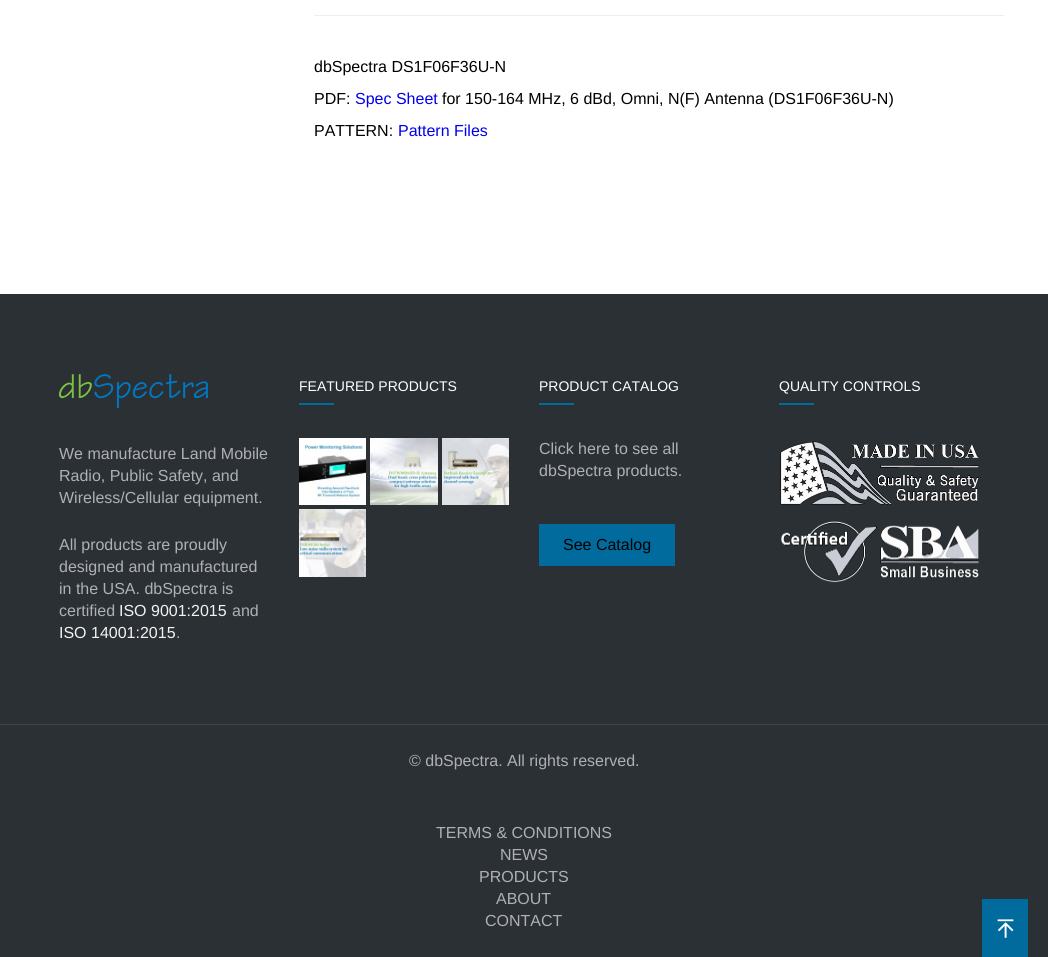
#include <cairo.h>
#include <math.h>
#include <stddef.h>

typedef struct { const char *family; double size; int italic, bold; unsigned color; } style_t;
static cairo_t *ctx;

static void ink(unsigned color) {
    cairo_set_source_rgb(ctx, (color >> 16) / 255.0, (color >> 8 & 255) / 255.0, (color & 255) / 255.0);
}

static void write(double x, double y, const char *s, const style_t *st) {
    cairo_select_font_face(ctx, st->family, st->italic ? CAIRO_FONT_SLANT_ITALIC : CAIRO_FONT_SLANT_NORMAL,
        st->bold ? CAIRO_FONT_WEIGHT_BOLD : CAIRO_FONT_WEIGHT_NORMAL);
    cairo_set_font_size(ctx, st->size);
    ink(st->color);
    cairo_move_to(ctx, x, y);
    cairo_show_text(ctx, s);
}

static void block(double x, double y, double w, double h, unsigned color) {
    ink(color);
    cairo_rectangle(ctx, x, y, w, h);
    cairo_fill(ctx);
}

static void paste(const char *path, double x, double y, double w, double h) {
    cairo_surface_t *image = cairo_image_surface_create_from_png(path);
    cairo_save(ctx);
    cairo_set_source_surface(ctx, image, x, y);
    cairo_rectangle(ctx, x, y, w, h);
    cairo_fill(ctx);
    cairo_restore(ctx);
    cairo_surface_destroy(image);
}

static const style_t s1 = {"Liberation Sans", 16, 0, 0, 0x000000};
static const style_t s2 = {"Liberation Sans", 16, 0, 0, 0x0000ee};
static const style_t s3 = {"Liberation Sans", 14, 0, 0, 0xffffff};
static const style_t s4 = {"Liberation Sans", 16, 0, 0, 0xafb0b2};
static const style_t s5 = {"Liberation Sans", 16, 0, 0, 0xf2f2f2};

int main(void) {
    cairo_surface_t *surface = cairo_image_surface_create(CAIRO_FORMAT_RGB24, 1048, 957);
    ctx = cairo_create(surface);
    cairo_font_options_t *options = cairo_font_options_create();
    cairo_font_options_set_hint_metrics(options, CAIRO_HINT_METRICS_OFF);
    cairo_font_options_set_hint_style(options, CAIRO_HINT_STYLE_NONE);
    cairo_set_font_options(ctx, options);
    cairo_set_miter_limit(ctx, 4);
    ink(0xffffff);
    cairo_paint(ctx);
    block(314, 15, 690, 1, 0xeeeeee);
    write(314, 72, "dbSpectra DS1F06F36U-N", &s1);
    write(314, 104, "PDF:", &s1);
    write(355, 104, "Spec Sheet", &s2);
    write(442, 104, "for 150-164 MHz, 6 dBd, Omni, N(F) Antenna (DS1F06F36U-N)", &s1);
    write(314, 136, "PATTERN:", &s1);
    write(398, 136, "Pattern Files", &s2);
    block(0, 294, 1048, 663, 0x2b3034);
    write(299, 391, "FEATURED PRODUCTS", &s3);
    block(299, 403, 35, 2, 0x016b9e);
    paste("pic1.png", 299, 438, 67, 67);
    paste("pic2.png", 370, 438, 68, 67);
    paste("pic3.png", 442, 438, 67, 67);
    paste("pic4.png", 299, 509, 67, 68);
    write(539, 391, "PRODUCT CATALOG", &s3);
    block(539, 403, 35, 2, 0x016b9e);
    write(539, 454, "Click here to see all", &s4);
    write(539, 476, "dbSpectra products.", &s4);
    block(539, 524, 136, 42, 0x016b9e);
    write(563, 550, "See Catalog", &s1);
    write(779, 391, "QUALITY CONTROLS", &s3);
    block(779, 403, 35, 2, 0x016b9e);
    paste("pic5.png", 780, 441, 199, 64);
    paste("pic6.png", 781, 521, 198, 62);
    paste("pic7.png", 59, 374, 149, 34);
    write(59, 459, "We manufacture Land Mobile", &s4);
    write(59, 481, "Radio, Public Safety, and", &s4);
    write(59, 503, "Wireless/Cellular equipment.", &s4);
    write(59, 550, "All products are proudly", &s4);
    write(59, 572, "designed and manufactured", &s4);
    write(59, 594, "in the USA. dbSpectra is", &s4);
    write(59, 616, "certified", &s4);
    write(119, 616, "ISO 9001:2015", &s5);
    write(232, 616, "and", &s4);
    write(59, 638, "ISO 14001:2015", &s5);
    write(176, 638, ".", &s4);
    block(0, 724, 1048, 1, 0x414549);
    write(409, 766, "© dbSpectra. All rights reserved.", &s4);
    write(436, 838, "TERMS & CONDITIONS", &s4);
    write(500, 860, "NEWS", &s4);
    write(479, 882, "PRODUCTS", &s4);
    write(496, 904, "ABOUT", &s4);
    write(485, 926, "CONTACT", &s4);
    block(982, 899, 46, 58, 0x016b9e);
    paste("pic8.png", 997, 919, 17, 19);
    cairo_surface_write_to_png(surface, "screenshot.png");
    cairo_font_options_destroy(options);
    cairo_destroy(ctx);
    cairo_surface_destroy(surface);
    return 0;
}
